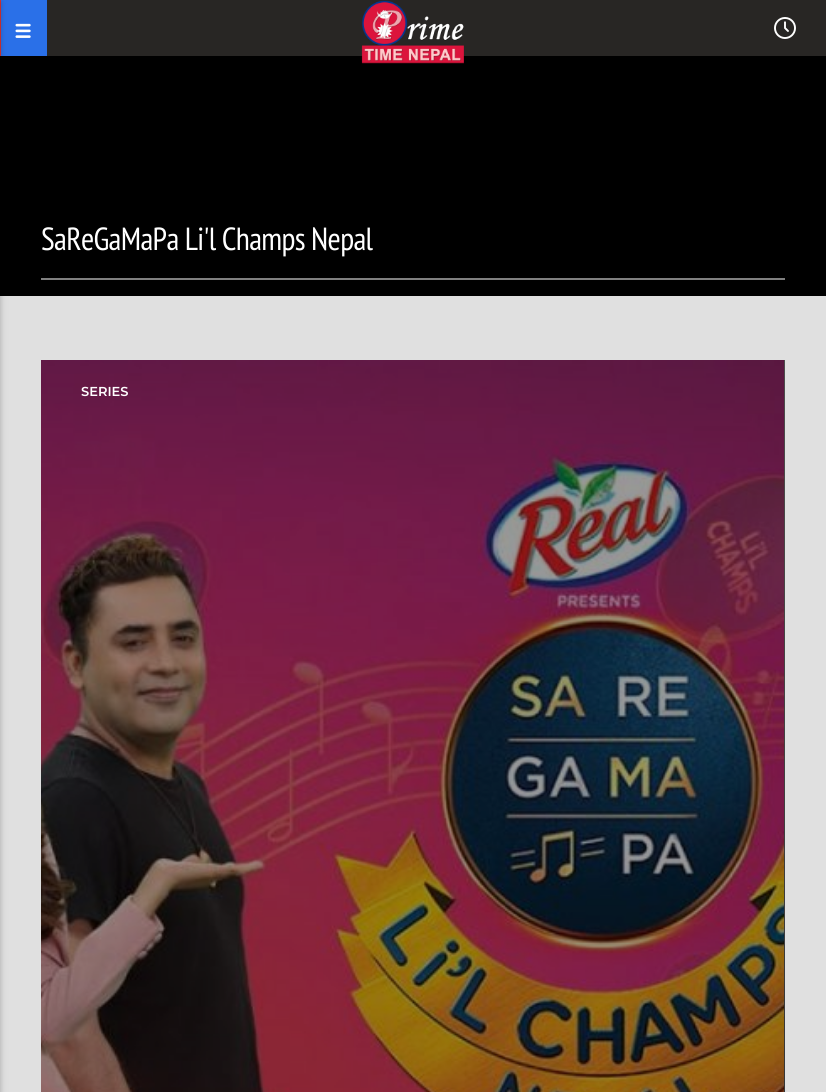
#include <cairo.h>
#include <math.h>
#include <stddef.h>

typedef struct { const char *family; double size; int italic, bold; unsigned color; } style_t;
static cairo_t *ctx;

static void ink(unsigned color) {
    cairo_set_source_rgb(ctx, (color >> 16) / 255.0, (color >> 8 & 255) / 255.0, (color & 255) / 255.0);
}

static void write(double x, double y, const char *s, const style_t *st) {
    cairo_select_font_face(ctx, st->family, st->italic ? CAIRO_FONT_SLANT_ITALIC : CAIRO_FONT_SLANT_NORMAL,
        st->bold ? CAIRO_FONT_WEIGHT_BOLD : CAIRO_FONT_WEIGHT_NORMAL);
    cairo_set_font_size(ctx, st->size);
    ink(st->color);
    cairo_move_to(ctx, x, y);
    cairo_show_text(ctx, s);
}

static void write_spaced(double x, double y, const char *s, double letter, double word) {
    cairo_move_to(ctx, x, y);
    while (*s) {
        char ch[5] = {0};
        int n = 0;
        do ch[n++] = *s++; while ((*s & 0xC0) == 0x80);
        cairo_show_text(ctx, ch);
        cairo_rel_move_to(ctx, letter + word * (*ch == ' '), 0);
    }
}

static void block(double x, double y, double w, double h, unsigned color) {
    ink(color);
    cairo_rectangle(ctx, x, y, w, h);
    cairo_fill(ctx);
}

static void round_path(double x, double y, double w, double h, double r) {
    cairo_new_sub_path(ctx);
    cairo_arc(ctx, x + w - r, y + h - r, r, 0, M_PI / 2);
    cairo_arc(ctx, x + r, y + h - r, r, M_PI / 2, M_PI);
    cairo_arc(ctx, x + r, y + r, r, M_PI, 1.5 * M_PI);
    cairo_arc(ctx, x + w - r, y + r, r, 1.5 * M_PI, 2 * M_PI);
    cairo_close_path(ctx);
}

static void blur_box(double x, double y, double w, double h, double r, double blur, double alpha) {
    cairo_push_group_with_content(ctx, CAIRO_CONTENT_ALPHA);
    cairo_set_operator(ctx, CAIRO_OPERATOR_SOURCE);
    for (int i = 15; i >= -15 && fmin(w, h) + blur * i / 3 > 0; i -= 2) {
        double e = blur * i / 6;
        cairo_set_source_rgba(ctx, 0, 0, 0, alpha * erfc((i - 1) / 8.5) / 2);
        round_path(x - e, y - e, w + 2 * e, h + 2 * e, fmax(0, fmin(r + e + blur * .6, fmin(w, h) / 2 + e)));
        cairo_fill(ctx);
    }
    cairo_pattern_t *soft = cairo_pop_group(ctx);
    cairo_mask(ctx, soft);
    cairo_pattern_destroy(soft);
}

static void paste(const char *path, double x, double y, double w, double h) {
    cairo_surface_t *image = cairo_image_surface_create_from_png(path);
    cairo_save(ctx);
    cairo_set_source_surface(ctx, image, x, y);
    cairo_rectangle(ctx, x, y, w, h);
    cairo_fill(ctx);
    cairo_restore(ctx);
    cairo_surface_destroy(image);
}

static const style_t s1 = {"Montserrat SemiBold", 13, 0, 0, 0xffffff};

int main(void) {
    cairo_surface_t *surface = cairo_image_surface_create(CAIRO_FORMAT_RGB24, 826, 1092);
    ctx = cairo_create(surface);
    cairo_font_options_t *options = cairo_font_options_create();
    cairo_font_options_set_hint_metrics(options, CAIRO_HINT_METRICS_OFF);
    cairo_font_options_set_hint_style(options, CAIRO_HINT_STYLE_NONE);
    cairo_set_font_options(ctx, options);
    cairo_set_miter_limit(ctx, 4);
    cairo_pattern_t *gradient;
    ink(0xe0e0e0);
    cairo_paint(ctx);
    block(47, 0, 779, 56, 0x282624);
    block(0, 0, 1, 56, 0xdd3333);
    block(1, 0, 46, 56, 0x2a70e8);
    paste("pic1.png", 15, 23, 16, 15);
    block(0, 56, 826, 240, 0x000000);
    paste("pic2.png", 361, 0, 103, 64);
    paste("pic3.png", 774, 17, 22, 22);
    ink(0x000000);
    blur_box(-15, 2, 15, 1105, 0, 5, 0.12);
    blur_box(-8, 2, 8, 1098, 0, 2.5, 0.16);
    cairo_select_font_face(ctx, "PT Sans Narrow", CAIRO_FONT_SLANT_NORMAL, CAIRO_FONT_WEIGHT_NORMAL);
    cairo_set_font_size(ctx, 32);
    ink(0xffffff);
    write_spaced(41, 250, "SaReGaMaPa Li'l Champs Nepal", -0.65, 0);
    block(41, 278, 744, 2, 0x808080);
    gradient = cairo_pattern_create_linear(-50, 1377, 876, 451);
    cairo_pattern_add_color_stop_rgba(gradient, 0, 0.075, 0.075, 0.075, 1);
    cairo_pattern_add_color_stop_rgba(gradient, 1, 0.302, 0.302, 0.302, 1);
    cairo_set_source(ctx, gradient);
    cairo_pattern_destroy(gradient);
    cairo_rectangle(ctx, 784, 360, 1, 732);
    cairo_fill(ctx);
    paste("pic4.png", 41, 360, 743, 732);
    write(81, 396, "SERIES", &s1);
    cairo_surface_write_to_png(surface, "screenshot.png");
    cairo_font_options_destroy(options);
    cairo_destroy(ctx);
    cairo_surface_destroy(surface);
    return 0;
}
